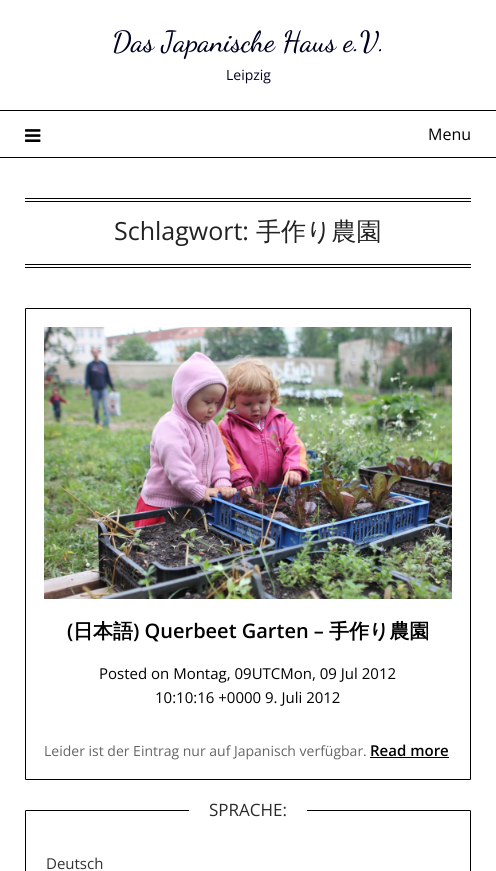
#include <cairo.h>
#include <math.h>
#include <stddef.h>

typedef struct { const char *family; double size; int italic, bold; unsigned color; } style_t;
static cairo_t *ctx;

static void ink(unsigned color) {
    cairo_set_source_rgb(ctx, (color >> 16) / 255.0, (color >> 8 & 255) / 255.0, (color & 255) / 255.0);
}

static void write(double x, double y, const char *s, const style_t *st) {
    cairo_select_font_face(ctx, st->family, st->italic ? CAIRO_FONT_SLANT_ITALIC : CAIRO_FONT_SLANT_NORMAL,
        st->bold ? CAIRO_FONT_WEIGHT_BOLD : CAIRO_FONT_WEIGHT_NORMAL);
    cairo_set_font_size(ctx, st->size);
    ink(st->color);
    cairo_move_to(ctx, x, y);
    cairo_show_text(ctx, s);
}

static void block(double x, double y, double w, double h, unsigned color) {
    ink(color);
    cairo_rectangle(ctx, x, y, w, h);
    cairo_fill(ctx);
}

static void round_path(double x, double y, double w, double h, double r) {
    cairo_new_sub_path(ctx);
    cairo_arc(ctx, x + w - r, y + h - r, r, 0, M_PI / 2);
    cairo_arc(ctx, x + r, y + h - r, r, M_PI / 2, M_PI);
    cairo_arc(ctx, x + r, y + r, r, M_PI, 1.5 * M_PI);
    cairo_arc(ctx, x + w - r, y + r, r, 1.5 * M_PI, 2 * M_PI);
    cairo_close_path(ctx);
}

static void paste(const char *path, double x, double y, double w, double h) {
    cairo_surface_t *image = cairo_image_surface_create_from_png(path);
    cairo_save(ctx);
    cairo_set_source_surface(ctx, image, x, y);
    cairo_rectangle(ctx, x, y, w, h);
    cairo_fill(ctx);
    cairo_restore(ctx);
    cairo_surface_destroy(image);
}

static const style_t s1 = {"Dancing Script Medium", 29, 0, 0, 0x000222};
static const style_t s2 = {"Open Sans", 14, 0, 0, 0x000222};
static const style_t s3 = {"Open Sans", 16, 0, 0, 0x000000};
static const style_t s4 = {"Open Sans", 25, 0, 0, 0x222222};
static const style_t s5 = {"WenQuanYi Zen Hei Medium", 25, 0, 0, 0x222222};
static const style_t s6 = {"Open Sans SemiBold", 20, 0, 0, 0x000000};
static const style_t s7 = {"WenQuanYi Zen Hei", 20, 0, 1, 0x000000};
static const style_t s8 = {"Open Sans", 15, 0, 0, 0x000000};
static const style_t s9 = {"Open Sans", 14, 0, 0, 0x656565};
static const style_t s10 = {"Open Sans SemiBold", 15, 0, 0, 0x000000};
static const style_t s11 = {"Open Sans", 17, 0, 0, 0x2b2b2b};
static const style_t s12 = {"Open Sans", 15, 0, 0, 0x333333};

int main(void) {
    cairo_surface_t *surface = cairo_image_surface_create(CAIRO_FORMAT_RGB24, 496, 871);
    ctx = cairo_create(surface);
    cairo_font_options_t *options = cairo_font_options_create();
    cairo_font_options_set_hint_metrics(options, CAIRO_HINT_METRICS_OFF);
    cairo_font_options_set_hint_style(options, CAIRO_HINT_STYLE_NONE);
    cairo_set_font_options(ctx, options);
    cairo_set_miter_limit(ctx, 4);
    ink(0xffffff);
    cairo_paint(ctx);
    write(112, 51, "Das Japanische Haus e.V.", &s1);
    write(226, 80, "Leipzig", &s2);
    block(0, 110, 496, 1, 0x000000);
    block(0, 157, 496, 1, 0x000000);
    paste("pic1.png", 25, 129, 16, 13);
    write(428, 140, "Menu", &s3);
    block(25, 198, 446, 1, 0x000000);
    block(25, 201, 446, 1, 0x000000);
    block(25, 264, 446, 1, 0x000000);
    block(25, 267, 446, 1, 0x000000);
    write(114, 240, "Schlagwort:", &s4);
    write(256, 240, "手作り農園", &s5);
    round_path(25.5, 308.5, 445, 471, 0.5);
    ink(0x000000);
    cairo_set_line_width(ctx, 1);
    cairo_stroke(ctx);
    paste("pic2.png", 44, 327, 408, 272);
    write(67, 638, "(", &s6);
    write(73, 638, "日本語", &s7);
    write(133, 638, ") Querbeet Garten –", &s6);
    write(329, 638, "手作り農園", &s7);
    write(99, 679, "Posted on Montag, 09UTCMon, 09 Jul 2012", &s8);
    write(155, 703, "10:10:16 +0000 9. Juli 2012", &s8);
    write(44, 756, "Leider ist der Eintrag nur auf Japanisch verfügbar.", &s9);
    write(370, 756, "Read more", &s10);
    block(370, 757, 79, 1, 0x000000);
    round_path(25.5, 810.5, 445, 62, 0.5);
    cairo_stroke(ctx);
    block(189, 810, 118, 1, 0xffffff);
    write(209, 816, "SPRACHE:", &s11);
    write(46, 869, "Deutsch", &s12);
    cairo_surface_write_to_png(surface, "screenshot.png");
    cairo_font_options_destroy(options);
    cairo_destroy(ctx);
    cairo_surface_destroy(surface);
    return 0;
}
